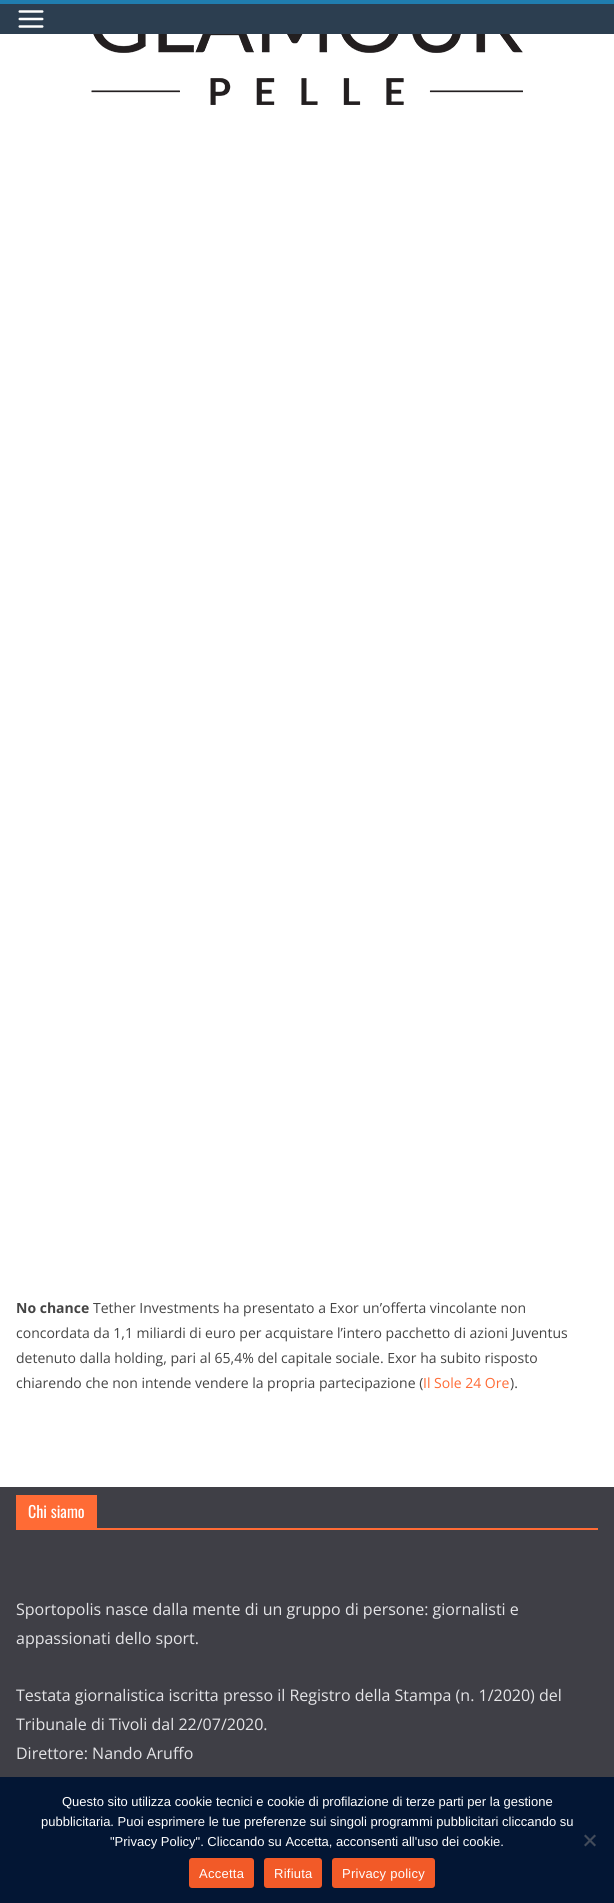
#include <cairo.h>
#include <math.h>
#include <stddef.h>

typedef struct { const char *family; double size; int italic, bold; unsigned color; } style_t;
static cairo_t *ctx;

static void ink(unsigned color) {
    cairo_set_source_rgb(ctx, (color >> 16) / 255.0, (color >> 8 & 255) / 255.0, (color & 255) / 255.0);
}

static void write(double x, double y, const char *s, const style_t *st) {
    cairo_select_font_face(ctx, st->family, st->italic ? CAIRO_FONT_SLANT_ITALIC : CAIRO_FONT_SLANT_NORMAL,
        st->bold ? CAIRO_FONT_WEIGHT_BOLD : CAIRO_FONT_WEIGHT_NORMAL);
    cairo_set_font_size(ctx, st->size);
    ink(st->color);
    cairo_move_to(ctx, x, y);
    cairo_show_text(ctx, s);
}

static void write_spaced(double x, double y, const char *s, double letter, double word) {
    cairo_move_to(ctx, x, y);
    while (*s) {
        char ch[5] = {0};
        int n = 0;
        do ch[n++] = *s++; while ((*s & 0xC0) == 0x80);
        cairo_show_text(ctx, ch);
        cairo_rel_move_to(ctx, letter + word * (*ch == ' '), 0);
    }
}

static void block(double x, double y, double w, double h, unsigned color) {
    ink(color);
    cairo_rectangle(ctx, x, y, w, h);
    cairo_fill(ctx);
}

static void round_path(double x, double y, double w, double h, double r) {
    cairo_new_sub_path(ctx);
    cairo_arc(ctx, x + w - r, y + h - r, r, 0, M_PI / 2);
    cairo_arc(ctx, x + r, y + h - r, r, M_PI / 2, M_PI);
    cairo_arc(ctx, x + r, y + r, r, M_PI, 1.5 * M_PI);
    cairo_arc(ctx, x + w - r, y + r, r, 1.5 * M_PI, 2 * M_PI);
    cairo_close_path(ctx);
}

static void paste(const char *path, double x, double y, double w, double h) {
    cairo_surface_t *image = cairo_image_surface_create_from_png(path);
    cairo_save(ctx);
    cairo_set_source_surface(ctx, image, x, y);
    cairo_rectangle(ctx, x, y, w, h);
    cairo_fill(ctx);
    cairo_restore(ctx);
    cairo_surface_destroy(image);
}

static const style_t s1 = {"Open Sans", 14, 0, 1, 0x444444};
static const style_t s2 = {"Open Sans", 14, 0, 0, 0x444444};
static const style_t s3 = {"Open Sans", 14, 0, 0, 0xff6b35};
static const style_t s4 = {"Oswald", 16, 0, 0, 0xffffff};
static const style_t s5 = {"Open Sans", 16, 0, 0, 0xe4e4e7};
static const style_t s6 = {"Liberation Sans", 13, 0, 0, 0xffffff};

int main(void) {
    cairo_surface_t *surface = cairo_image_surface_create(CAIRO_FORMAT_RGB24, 614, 1903);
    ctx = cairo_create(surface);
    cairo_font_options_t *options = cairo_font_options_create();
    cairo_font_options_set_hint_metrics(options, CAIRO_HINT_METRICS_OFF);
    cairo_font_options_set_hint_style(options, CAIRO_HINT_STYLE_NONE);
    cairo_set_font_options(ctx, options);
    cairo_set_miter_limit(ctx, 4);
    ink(0xffffff);
    cairo_paint(ctx);
    block(0, 4, 614, 30, 0x2c3e50);
    block(0, 0, 614, 4, 0x207daf);
    paste("pic1.png", 18, 10, 26, 18);
    paste("pic2.png", 91, 34, 432, 71);
    write(16, 1313, "No chance", &s1);
    write(93, 1313, "Tether Investments ha presentato a Exor un’offerta vincolante non", &s2);
    write(16, 1338, "concordata da 1,1 miliardi di euro per acquistare l’intero pacchetto di azioni Juventus", &s2);
    write(16, 1363, "detenuto dalla holding, pari al 65,4% del capitale sociale. Exor ha subito risposto", &s2);
    write(16, 1388, "chiarendo che non intende vendere la propria partecipazione (", &s2);
    write(423, 1388, "Il Sole 24 Ore", &s3);
    write(510, 1388, ").", &s2);
    block(0, 1487, 614, 290, 0x3f3f46);
    block(16, 1528, 582, 2, 0xff6b35);
    block(16, 1495, 81, 33, 0xff6b35);
    write(28, 1518, "Chi siamo", &s4);
    write(16, 1615, "Sportopolis nasce dalla mente di un gruppo di persone: giornalisti e", &s5);
    write(16, 1644, "appassionati dello sport.", &s5);
    write(16, 1701, "Testata giornalistica iscritta presso il Registro della Stampa (n. 1/2020) del", &s5);
    write(16, 1730, "Tribunale di Tivoli dal 22/07/2020.", &s5);
    write(16, 1759, "Direttore: Nando Aruffo", &s5);
    block(0, 1777, 614, 126, 0x031634);
    write(62, 1806, "Questo sito utilizza cookie tecnici e cookie di profilazione di terze parti per la gestione", &s6);
    write(41, 1826, "pubblicitaria. Puoi esprimere le tue preferenze sui singoli programmi pubblicitari cliccando su", &s6);
    write(110, 1846, "\"Privacy Policy\". Cliccando su Accetta, acconsenti all'uso dei cookie.", &s6);
    ink(0x424b5a);
    cairo_new_path(ctx);
    cairo_move_to(ctx, 594.5, 1834.5);
    cairo_line_to(ctx, 596, 1836);
    cairo_line_to(ctx, 585.5, 1846.5);
    cairo_line_to(ctx, 584, 1845);
    cairo_close_path(ctx);
    cairo_fill(ctx);
    cairo_new_path(ctx);
    cairo_move_to(ctx, 584, 1836);
    cairo_line_to(ctx, 585.5, 1834.5);
    cairo_line_to(ctx, 596, 1845);
    cairo_line_to(ctx, 594.5, 1846.5);
    cairo_close_path(ctx);
    cairo_fill(ctx);
    ink(0xf25a28);
    round_path(189, 1858, 65, 30, 3);
    cairo_fill(ctx);
    ink(0xffffff);
    write_spaced(199, 1878, "Accetta", 0.25, 0);
    ink(0xf25a28);
    round_path(264, 1858, 58, 30, 3);
    cairo_fill(ctx);
    ink(0xffffff);
    write_spaced(274, 1878, "Rifiuta", 0.25, 0);
    ink(0xf25a28);
    round_path(332, 1858, 103, 30, 3);
    cairo_fill(ctx);
    ink(0xffffff);
    write_spaced(342, 1878, "Privacy policy", 0.25, 0);
    cairo_surface_write_to_png(surface, "screenshot.png");
    cairo_font_options_destroy(options);
    cairo_destroy(ctx);
    cairo_surface_destroy(surface);
    return 0;
}
